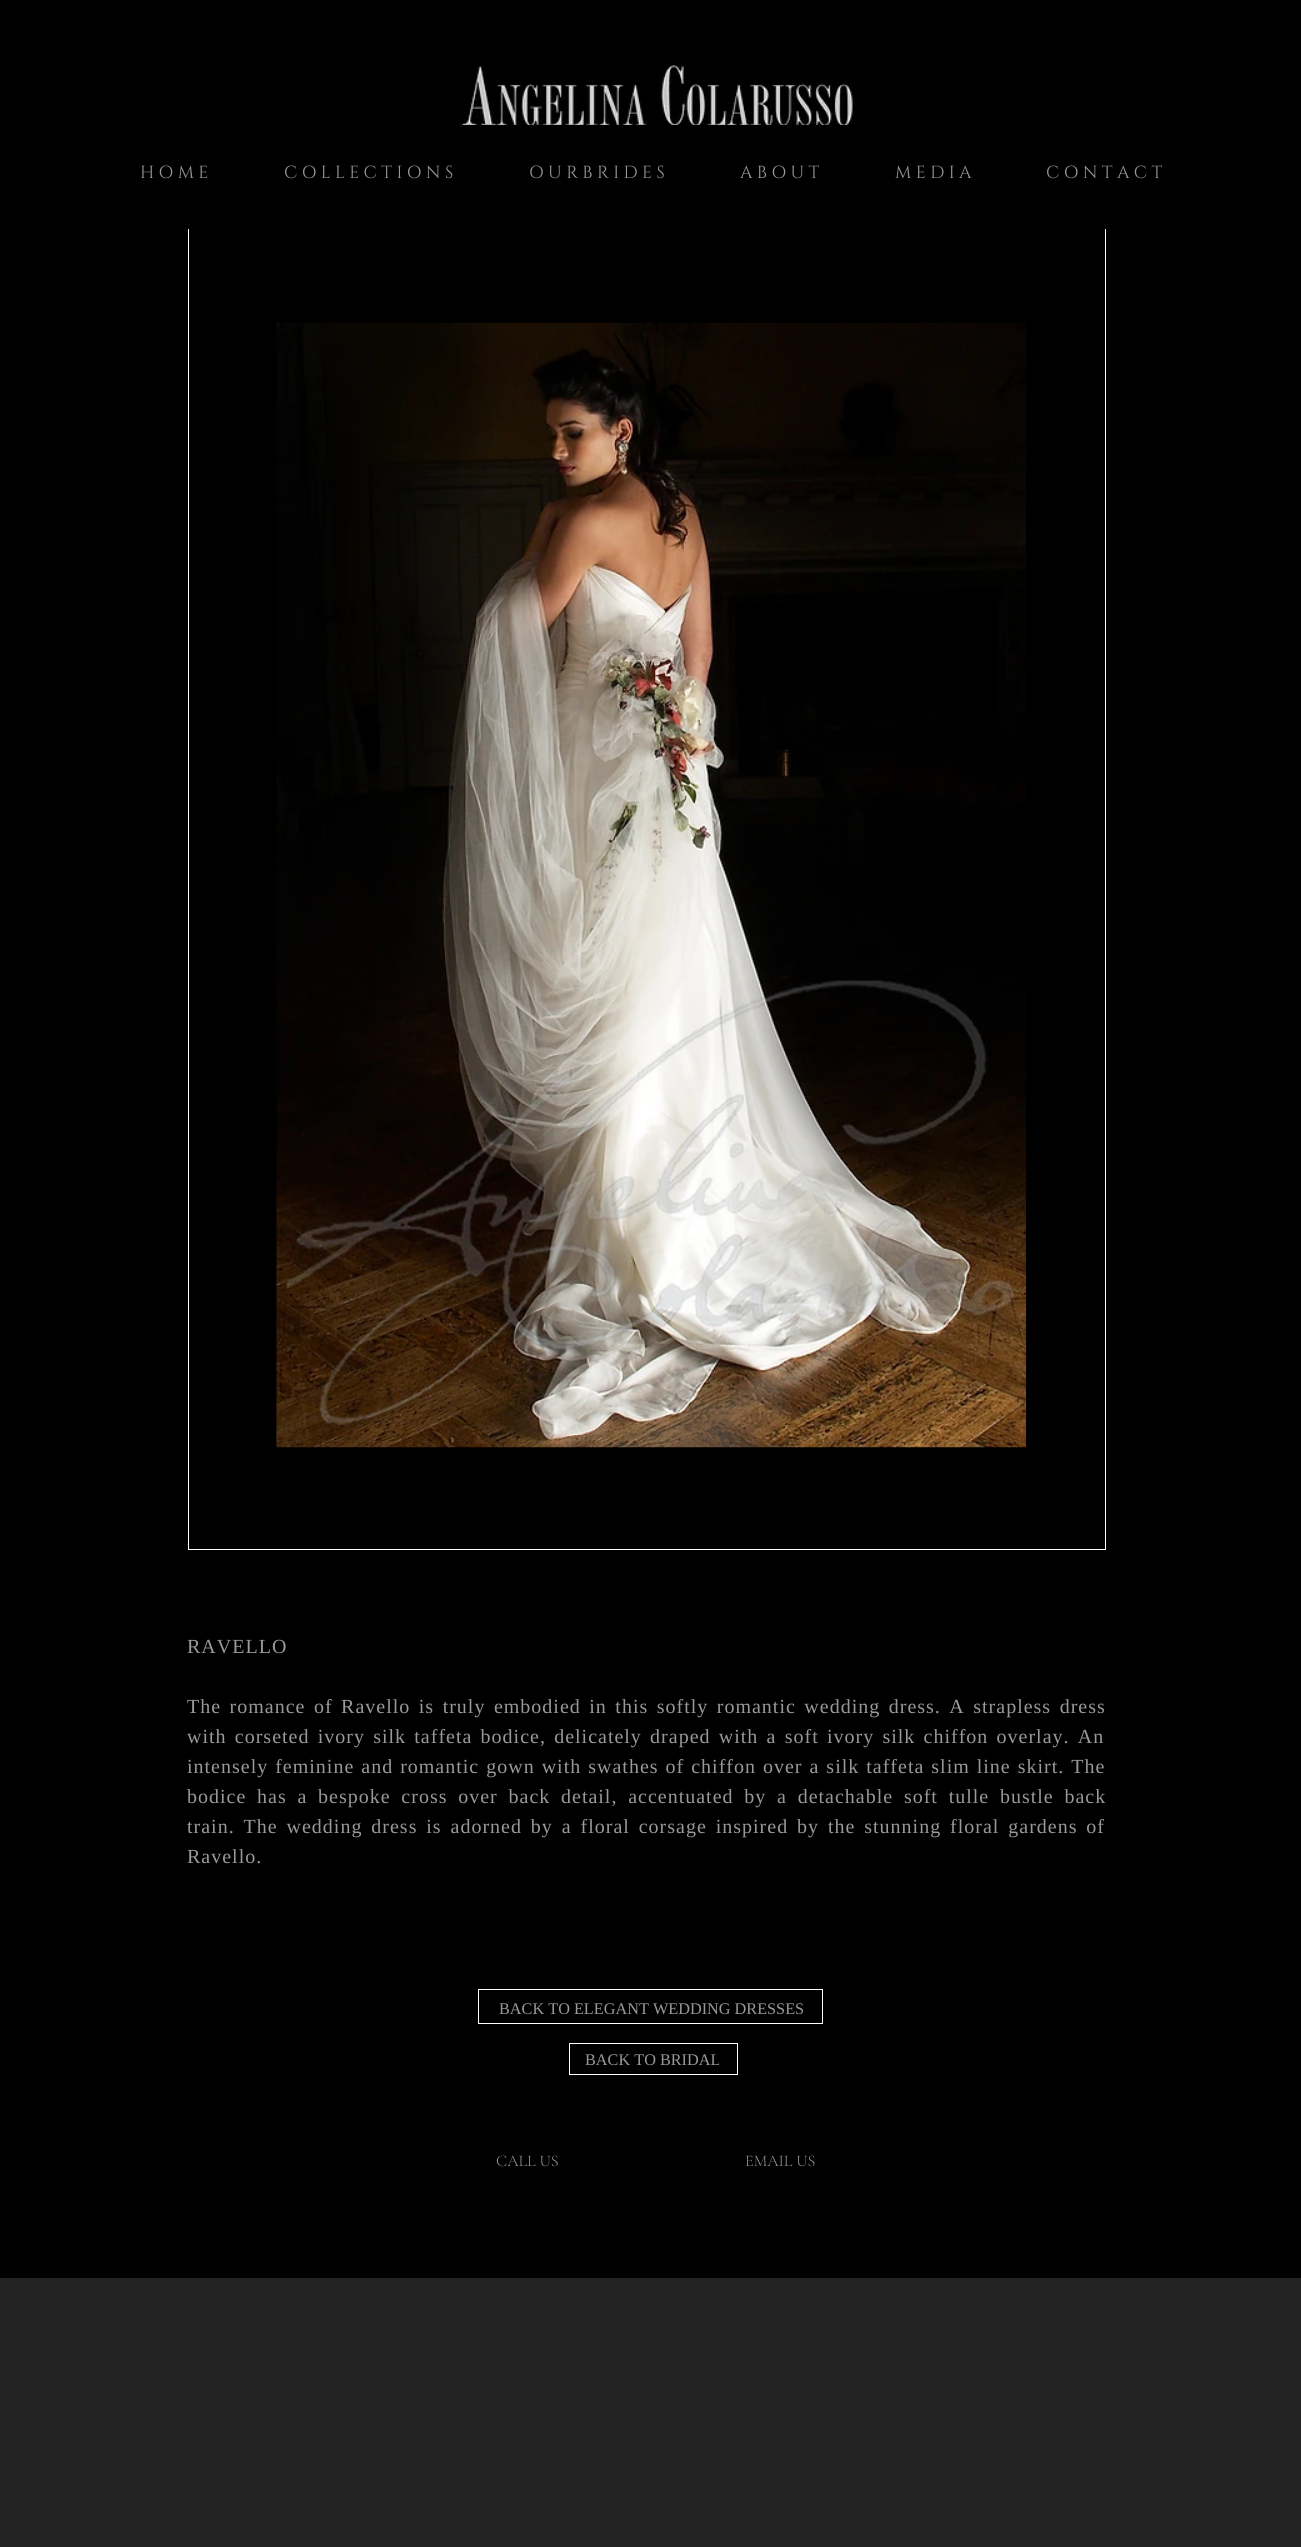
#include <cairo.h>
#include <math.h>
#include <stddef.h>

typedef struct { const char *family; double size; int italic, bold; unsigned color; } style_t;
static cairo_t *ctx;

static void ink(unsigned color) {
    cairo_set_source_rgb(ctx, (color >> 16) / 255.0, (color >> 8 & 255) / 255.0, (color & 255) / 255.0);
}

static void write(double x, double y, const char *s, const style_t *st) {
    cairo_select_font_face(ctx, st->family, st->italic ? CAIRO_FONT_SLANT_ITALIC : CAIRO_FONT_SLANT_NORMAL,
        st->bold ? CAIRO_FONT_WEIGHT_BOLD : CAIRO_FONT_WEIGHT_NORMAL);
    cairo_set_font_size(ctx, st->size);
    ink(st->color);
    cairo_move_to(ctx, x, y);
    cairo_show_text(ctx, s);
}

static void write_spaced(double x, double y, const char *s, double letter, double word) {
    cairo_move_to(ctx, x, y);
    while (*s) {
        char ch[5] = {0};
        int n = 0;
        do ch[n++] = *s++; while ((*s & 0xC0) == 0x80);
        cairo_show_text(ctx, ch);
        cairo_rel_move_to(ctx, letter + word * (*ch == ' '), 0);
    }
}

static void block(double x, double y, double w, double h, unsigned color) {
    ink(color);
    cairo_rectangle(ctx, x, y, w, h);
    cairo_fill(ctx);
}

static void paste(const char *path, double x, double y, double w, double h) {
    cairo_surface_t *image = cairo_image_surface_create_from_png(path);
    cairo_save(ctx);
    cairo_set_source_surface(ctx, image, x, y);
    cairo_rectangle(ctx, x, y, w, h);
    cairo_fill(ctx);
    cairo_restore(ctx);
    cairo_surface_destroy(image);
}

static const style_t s1 = {"Cinzel", 17.5, 0, 0, 0x999999};
static const style_t s2 = {"Liberation Serif", 16.25, 0, 0, 0x999999};
static const style_t s3 = {"Cormorant Garamond Light", 16.25, 0, 0, 0x999999};

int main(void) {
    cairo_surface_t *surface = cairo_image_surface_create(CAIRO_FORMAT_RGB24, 1301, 2547);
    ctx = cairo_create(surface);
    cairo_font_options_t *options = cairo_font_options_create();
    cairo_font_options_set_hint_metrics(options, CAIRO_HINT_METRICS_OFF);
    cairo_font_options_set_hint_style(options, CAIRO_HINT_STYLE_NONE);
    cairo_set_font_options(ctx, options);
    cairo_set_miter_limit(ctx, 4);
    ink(0x000000);
    cairo_paint(ctx);
    paste("pic1.png", 462, 65, 393, 60);
    write(140, 178, "H O M E", &s1);
    write(284, 178, "C O L L E C T I O N S", &s1);
    write(529, 178, "O U R B R I D E S", &s1);
    write(740, 178, "A B O U T", &s1);
    write(895, 178, "M E D I A", &s1);
    write(1046, 178, "C O N T A C T", &s1);
    cairo_rectangle(ctx, 188.5, 228.5, 917, 1321);
    ink(0xffffff);
    cairo_set_line_width(ctx, 1);
    cairo_stroke(ctx);
    block(188, 228, 918, 1, 0x000000);
    paste("pic2.png", 276, 322, 751, 1126);
    cairo_select_font_face(ctx, "Liberation Serif", CAIRO_FONT_SLANT_NORMAL, CAIRO_FONT_WEIGHT_NORMAL);
    cairo_set_font_size(ctx, 20);
    ink(0x999999);
    write_spaced(187, 1653, "RAVELLO", 1, 0);
    write_spaced(187, 1713, "The romance of Ravello is truly embodied in this softly romantic wedding dress. A strapless dress", 1, 2.5);
    write_spaced(187, 1743, "with corseted ivory silk taffeta bodice, delicately draped with a soft ivory silk chiffon overlay. An", 1, 2.25);
    write_spaced(187, 1773, "intensely feminine and romantic gown with swathes of chiffon over a silk taffeta slim line skirt. The", 1, 1);
    write_spaced(187, 1803, "bodice has a bespoke cross over back detail, accentuated by a detachable soft tulle bustle back", 1, 4.75);
    write_spaced(187, 1833, "train. The wedding dress is adorned by a floral corsage inspired by the stunning floral gardens of", 1, 2.9);
    write_spaced(187, 1863, "Ravello.", 1, 0);
    cairo_rectangle(ctx, 478.5, 1989.5, 344, 34);
    ink(0xffffff);
    cairo_stroke(ctx);
    write(499, 2014, "BACK TO ELEGANT WEDDING DRESSES", &s2);
    cairo_rectangle(ctx, 569.5, 2043.5, 168, 31);
    ink(0xffffff);
    cairo_stroke(ctx);
    write(585, 2065, "BACK TO BRIDAL", &s2);
    write(496, 2166, "CALL US", &s3);
    write(745, 2166, "EMAIL US", &s3);
    block(0, 2278, 1301, 269, 0x242323);
    cairo_surface_write_to_png(surface, "screenshot.png");
    cairo_font_options_destroy(options);
    cairo_destroy(ctx);
    cairo_surface_destroy(surface);
    return 0;
}
